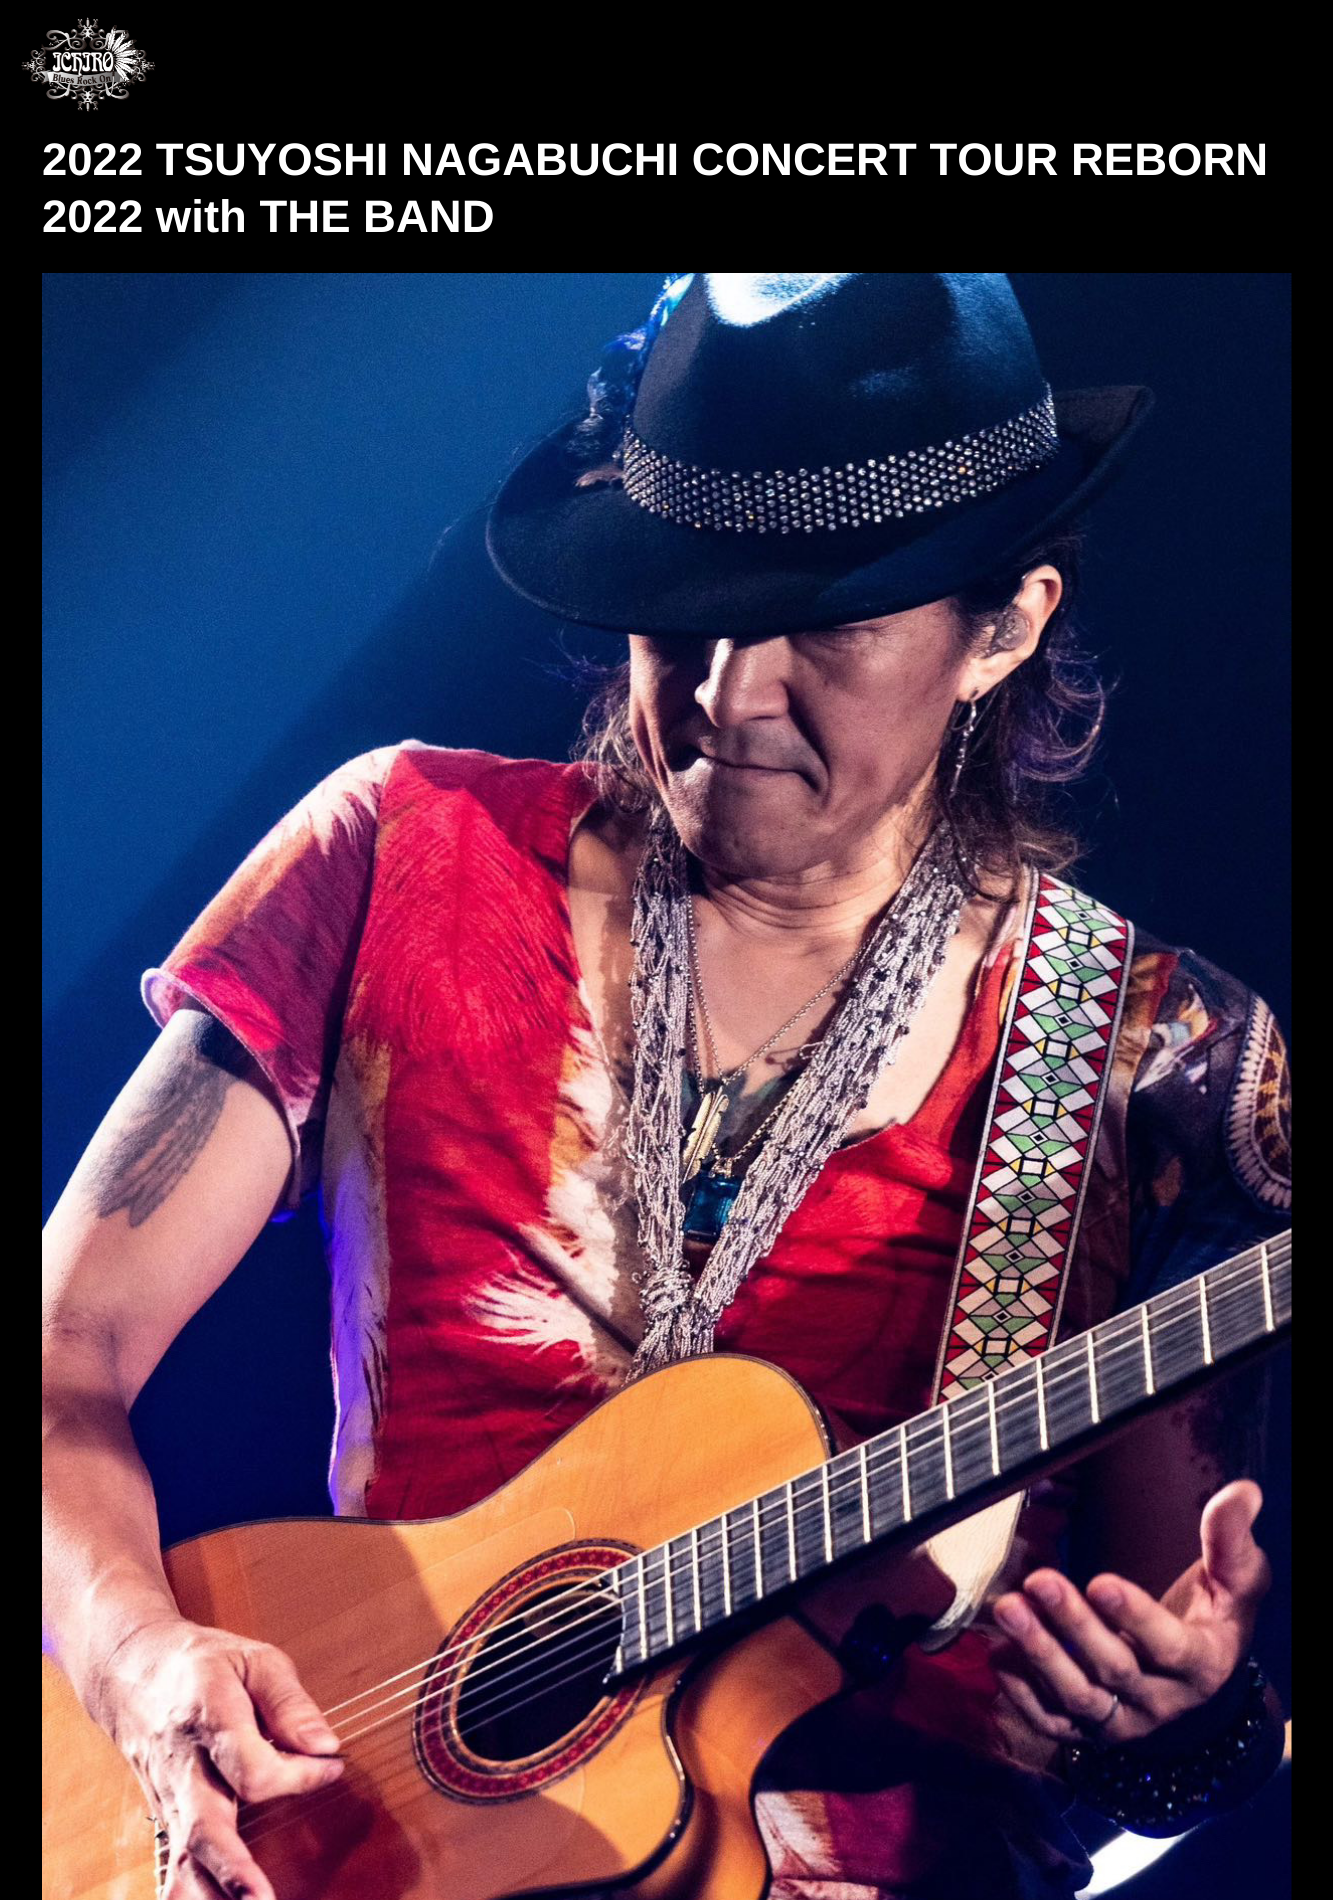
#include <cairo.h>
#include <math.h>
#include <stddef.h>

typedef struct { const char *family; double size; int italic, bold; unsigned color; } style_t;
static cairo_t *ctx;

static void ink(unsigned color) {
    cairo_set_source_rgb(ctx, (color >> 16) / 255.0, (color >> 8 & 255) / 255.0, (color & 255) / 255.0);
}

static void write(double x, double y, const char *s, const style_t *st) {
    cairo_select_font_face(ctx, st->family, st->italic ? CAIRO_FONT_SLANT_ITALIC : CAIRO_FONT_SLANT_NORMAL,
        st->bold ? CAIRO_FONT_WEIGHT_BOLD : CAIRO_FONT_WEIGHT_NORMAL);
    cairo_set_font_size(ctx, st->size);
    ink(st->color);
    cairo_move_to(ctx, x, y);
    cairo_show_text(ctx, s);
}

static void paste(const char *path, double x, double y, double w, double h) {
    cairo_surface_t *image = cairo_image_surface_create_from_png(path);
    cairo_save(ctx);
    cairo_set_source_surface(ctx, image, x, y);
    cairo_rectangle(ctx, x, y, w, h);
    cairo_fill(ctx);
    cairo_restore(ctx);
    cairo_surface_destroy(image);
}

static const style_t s1 = {"Liberation Sans", 45.5, 0, 1, 0xffffff};

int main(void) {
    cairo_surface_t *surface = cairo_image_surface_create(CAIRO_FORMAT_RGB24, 1333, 1900);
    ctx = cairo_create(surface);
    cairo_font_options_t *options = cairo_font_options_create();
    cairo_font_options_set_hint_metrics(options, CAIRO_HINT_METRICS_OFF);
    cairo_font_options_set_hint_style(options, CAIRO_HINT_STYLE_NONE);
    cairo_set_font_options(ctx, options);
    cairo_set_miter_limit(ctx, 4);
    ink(0x000000);
    cairo_paint(ctx);
    paste("pic1.png", 21, 17, 135, 95);
    write(42, 175, "2022 TSUYOSHI NAGABUCHI CONCERT TOUR REBORN", &s1);
    write(42, 232, "2022 with THE BAND", &s1);
    paste("pic2.png", 42, 273, 1250, 1627);
    cairo_surface_write_to_png(surface, "screenshot.png");
    cairo_font_options_destroy(options);
    cairo_destroy(ctx);
    cairo_surface_destroy(surface);
    return 0;
}
